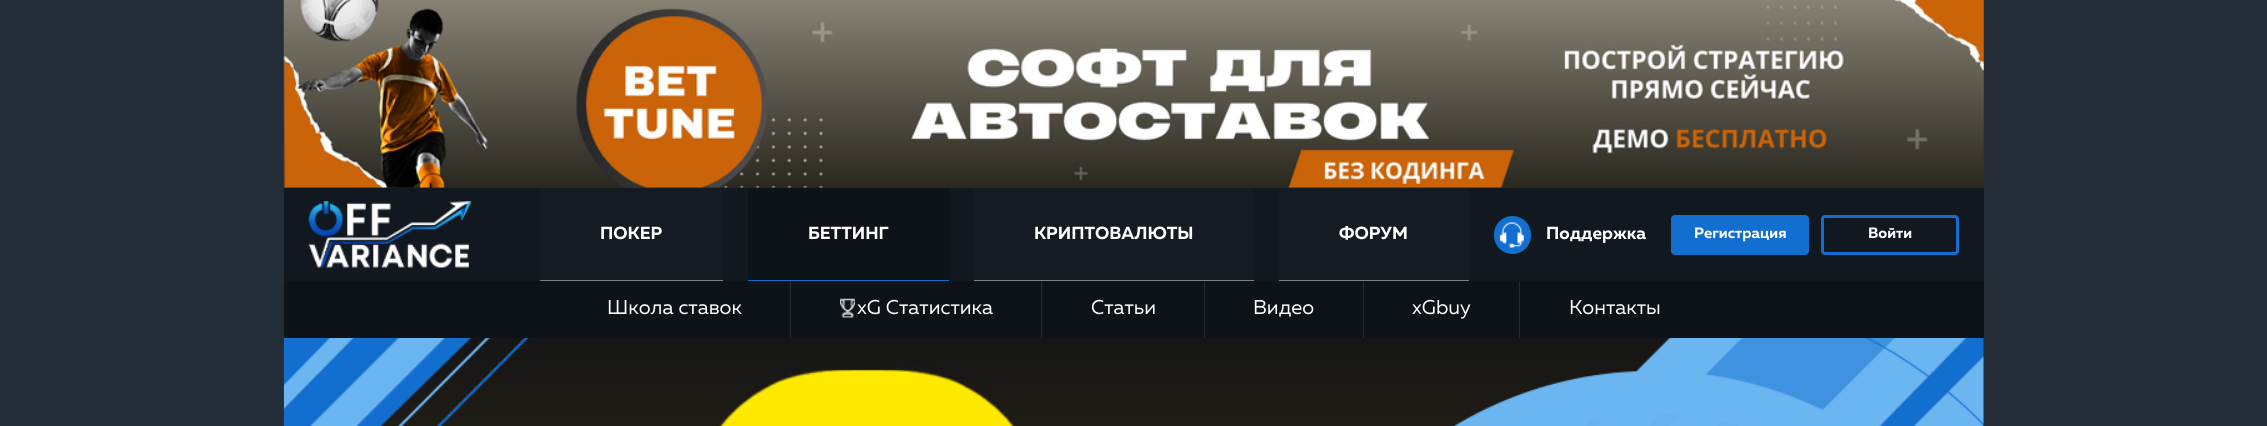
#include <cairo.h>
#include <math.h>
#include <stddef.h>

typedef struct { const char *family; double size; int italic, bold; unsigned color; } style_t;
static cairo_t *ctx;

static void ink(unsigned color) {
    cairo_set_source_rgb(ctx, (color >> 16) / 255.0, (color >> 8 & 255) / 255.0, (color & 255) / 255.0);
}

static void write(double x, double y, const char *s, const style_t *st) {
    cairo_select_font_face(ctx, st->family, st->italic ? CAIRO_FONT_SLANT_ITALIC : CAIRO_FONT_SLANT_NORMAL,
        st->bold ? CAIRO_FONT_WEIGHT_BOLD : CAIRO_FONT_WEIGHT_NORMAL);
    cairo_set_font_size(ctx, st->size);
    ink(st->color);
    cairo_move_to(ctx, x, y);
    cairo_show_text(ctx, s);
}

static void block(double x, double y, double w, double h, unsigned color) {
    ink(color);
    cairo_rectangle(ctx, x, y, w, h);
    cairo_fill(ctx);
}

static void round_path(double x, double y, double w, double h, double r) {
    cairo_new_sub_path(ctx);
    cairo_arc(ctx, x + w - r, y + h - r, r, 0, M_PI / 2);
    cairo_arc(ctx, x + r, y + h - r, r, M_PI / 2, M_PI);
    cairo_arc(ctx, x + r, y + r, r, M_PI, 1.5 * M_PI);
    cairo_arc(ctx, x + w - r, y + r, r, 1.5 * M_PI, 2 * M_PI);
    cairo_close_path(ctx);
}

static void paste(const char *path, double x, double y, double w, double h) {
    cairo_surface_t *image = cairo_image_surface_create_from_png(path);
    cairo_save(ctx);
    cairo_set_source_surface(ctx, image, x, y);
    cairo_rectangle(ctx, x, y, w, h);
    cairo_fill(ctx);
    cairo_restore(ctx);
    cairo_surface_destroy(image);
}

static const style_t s1 = {"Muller", 17.5, 0, 1, 0xffffff};
static const style_t s2 = {"Muller", 15, 0, 1, 0xffffff};
static const style_t s3 = {"Muller", 20, 0, 0, 0xffffff};

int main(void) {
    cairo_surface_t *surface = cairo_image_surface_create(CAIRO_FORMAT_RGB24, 2267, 426);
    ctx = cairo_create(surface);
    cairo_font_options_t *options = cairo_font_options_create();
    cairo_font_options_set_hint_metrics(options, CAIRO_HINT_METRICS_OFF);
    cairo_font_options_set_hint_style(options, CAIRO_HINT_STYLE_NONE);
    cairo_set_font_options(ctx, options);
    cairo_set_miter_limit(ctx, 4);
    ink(0x232e38);
    cairo_paint(ctx);
    paste("pic1.png", 283, 0, 1701, 188);
    block(284, 188, 1700, 93, 0x111820);
    paste("pic2.png", 308, 201, 164, 67);
    block(540, 188, 183, 92, 0x141b23);
    block(540, 280, 183, 1, 0x808080);
    write(600, 239, "ПОКЕР", &s1);
    block(748, 188, 201, 92, 0x0e1319);
    block(748, 280, 201, 1, 0x126ecf);
    write(808, 239, "БЕТТИНГ", &s1);
    block(974, 188, 280, 92, 0x141b23);
    block(974, 280, 280, 1, 0x808080);
    write(1034, 239, "КРИПТОВАЛЮТЫ", &s1);
    block(1279, 188, 190, 92, 0x141b23);
    block(1279, 280, 190, 1, 0x808080);
    write(1339, 239, "ФОРУМ", &s1);
    ink(0x126ecf);
    round_path(1495.5, 217.5, 34, 35, 17);
    cairo_fill_preserve(ctx);
    cairo_set_line_width(ctx, 3);
    cairo_stroke(ctx);
    paste("pic3.png", 1500, 222, 24, 26);
    write(1546, 239, "Поддержка", &s1);
    ink(0x126ecf);
    round_path(1672.5, 216.5, 135, 37, 2.5);
    cairo_fill_preserve(ctx);
    cairo_stroke(ctx);
    write(1694, 238, "Регистрация", &s2);
    round_path(1822.5, 216.5, 135, 37, 2.5);
    ink(0x126ecf);
    cairo_stroke(ctx);
    write(1868, 238, "Войти", &s2);
    block(284, 281, 1700, 57, 0x0e1319);
    block(790, 281, 1, 57, 0x232b34);
    write(607, 314, "Школа ставок", &s3);
    block(1041, 281, 1, 57, 0x232b34);
    paste("pic4.png", 840, 298, 15, 20);
    write(857, 314, "xG Статистика", &s3);
    block(1204, 281, 1, 57, 0x232b34);
    write(1091, 314, "Статьи", &s3);
    block(1363, 281, 1, 57, 0x232b34);
    write(1253, 314, "Видео", &s3);
    block(1519, 281, 1, 57, 0x232b34);
    write(1412, 314, "xGbuy", &s3);
    write(1569, 314, "Контакты", &s3);
    paste("pic6.png", 379, 338, 1605, 88);
    paste("pic5.png", 283, 338, 246, 88);
    paste("pic7.png", 1453, 338, 531, 88);
    cairo_surface_write_to_png(surface, "screenshot.png");
    cairo_font_options_destroy(options);
    cairo_destroy(ctx);
    cairo_surface_destroy(surface);
    return 0;
}
